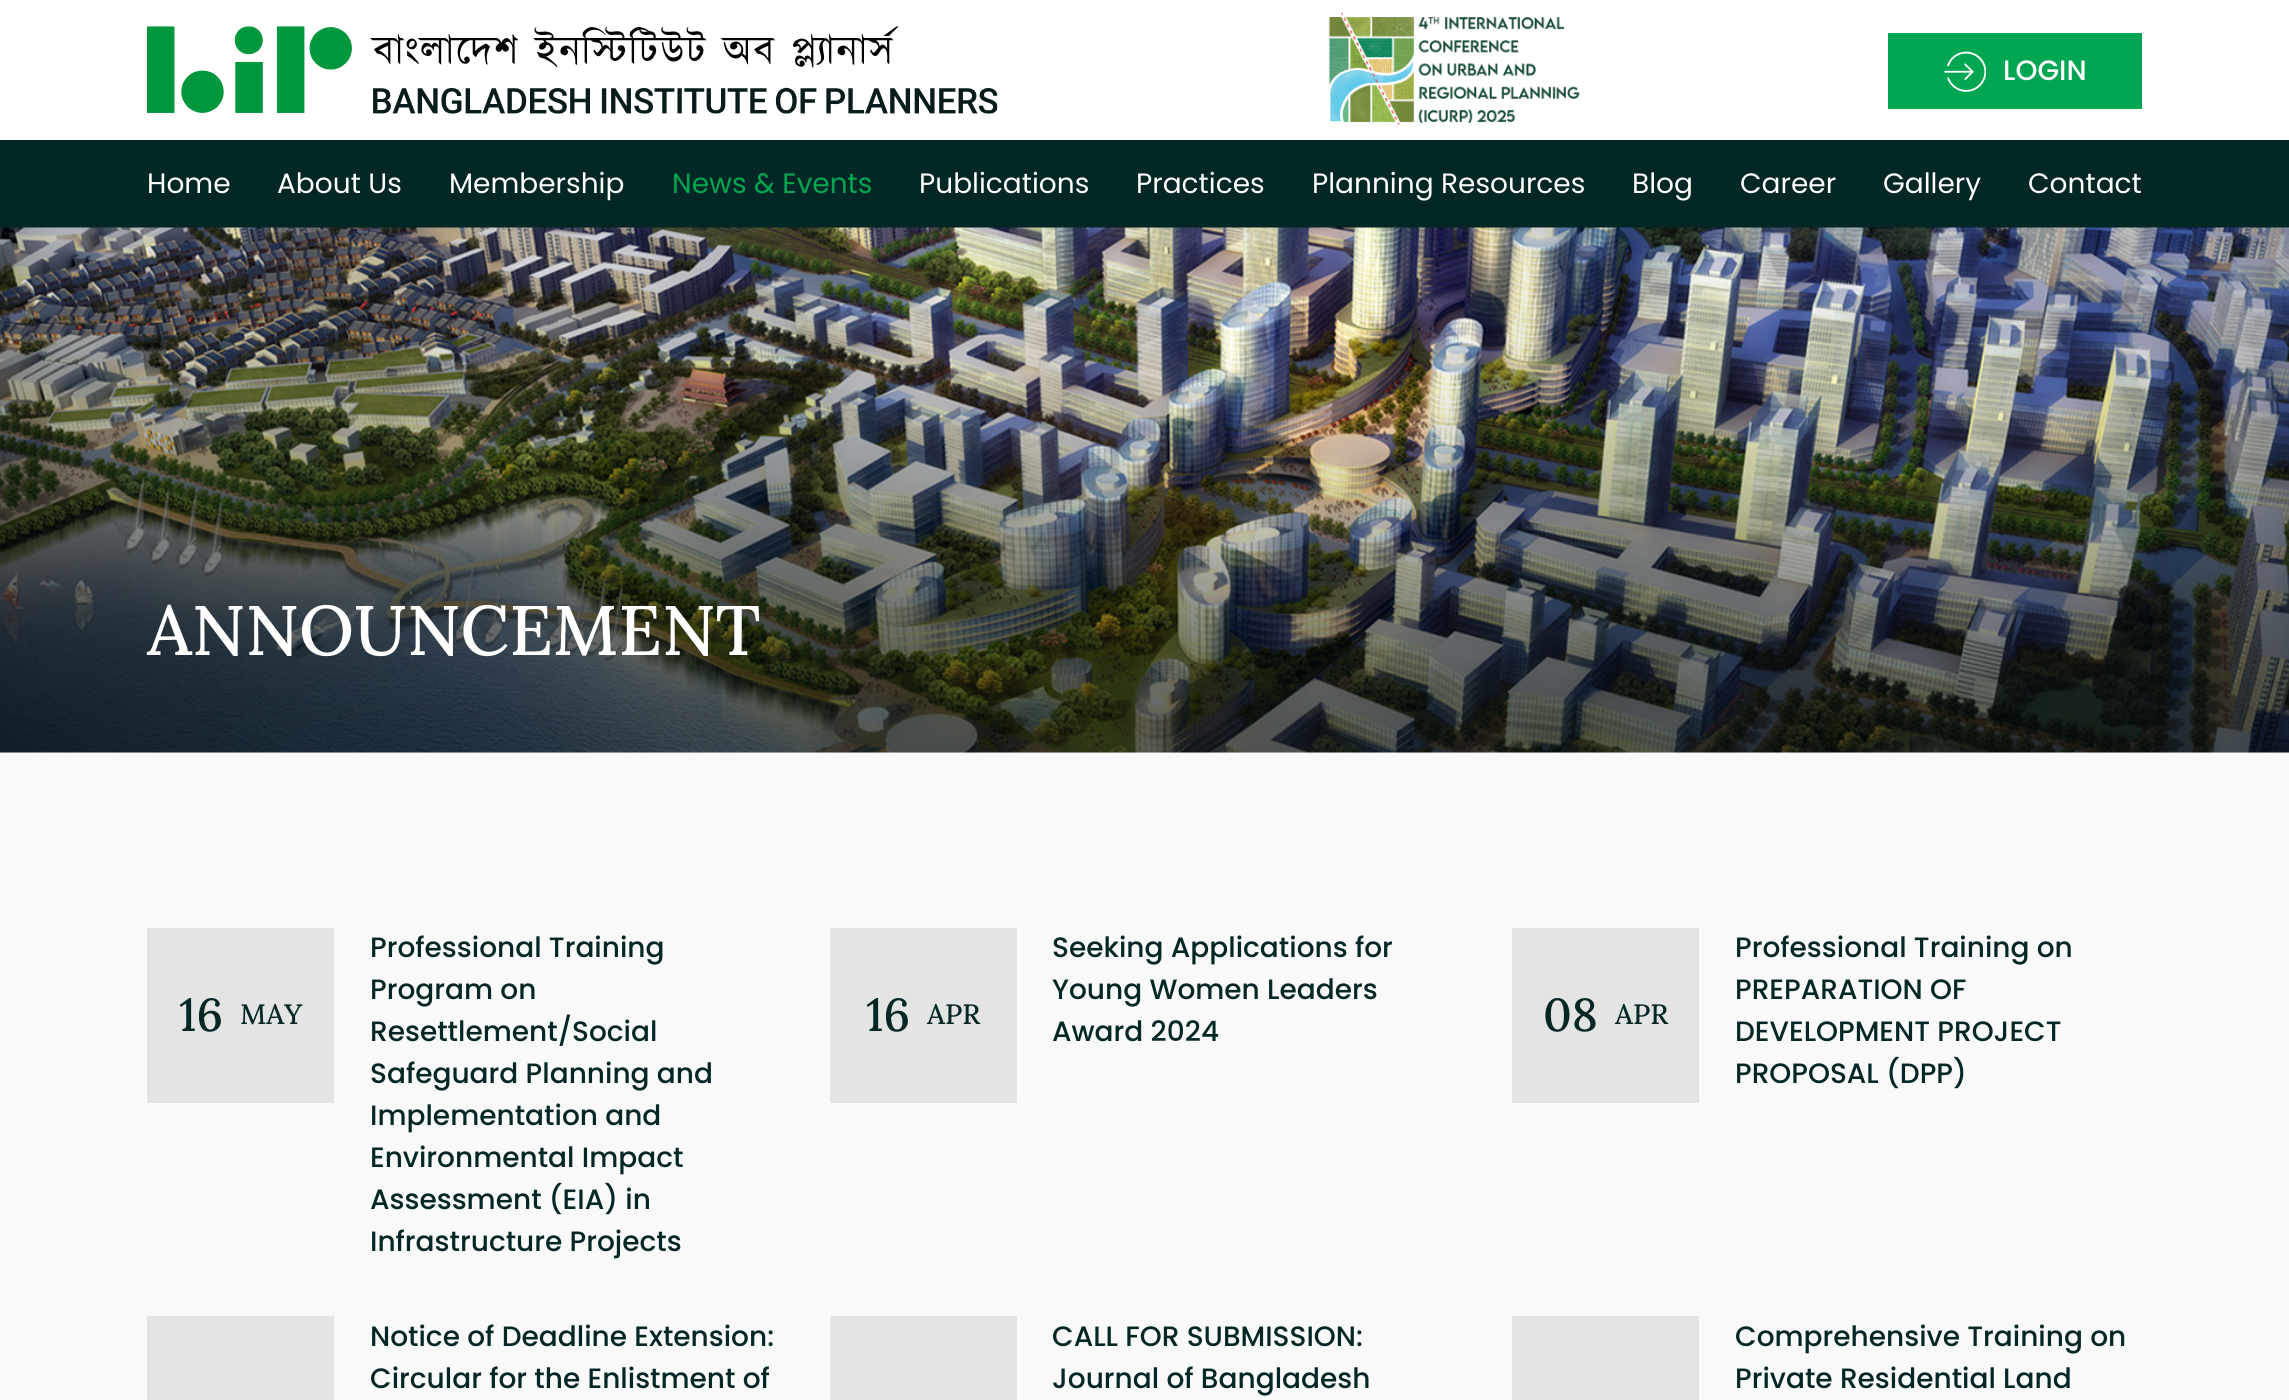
#include <cairo.h>
#include <math.h>
#include <stddef.h>

typedef struct { const char *family; double size; int italic, bold; unsigned color; } style_t;
static cairo_t *ctx;

static void ink(unsigned color) {
    cairo_set_source_rgb(ctx, (color >> 16) / 255.0, (color >> 8 & 255) / 255.0, (color & 255) / 255.0);
}

static void write(double x, double y, const char *s, const style_t *st) {
    cairo_select_font_face(ctx, st->family, st->italic ? CAIRO_FONT_SLANT_ITALIC : CAIRO_FONT_SLANT_NORMAL,
        st->bold ? CAIRO_FONT_WEIGHT_BOLD : CAIRO_FONT_WEIGHT_NORMAL);
    cairo_set_font_size(ctx, st->size);
    ink(st->color);
    cairo_move_to(ctx, x, y);
    cairo_show_text(ctx, s);
}

static void block(double x, double y, double w, double h, unsigned color) {
    ink(color);
    cairo_rectangle(ctx, x, y, w, h);
    cairo_fill(ctx);
}

static void paste(const char *path, double x, double y, double w, double h) {
    cairo_surface_t *image = cairo_image_surface_create_from_png(path);
    cairo_save(ctx);
    cairo_set_source_surface(ctx, image, x, y);
    cairo_rectangle(ctx, x, y, w, h);
    cairo_fill(ctx);
    cairo_restore(ctx);
    cairo_surface_destroy(image);
}

static const style_t s1 = {"Poppins Medium", 28, 0, 0, 0xffffff};
static const style_t s2 = {"Poppins", 28, 0, 0, 0xffffff};
static const style_t s3 = {"Poppins", 28, 0, 0, 0x00a651};
static const style_t s4 = {"Lora Medium", 70, 0, 0, 0xffffff};
static const style_t s5 = {"Lora Medium", 46, 0, 0, 0x022725};
static const style_t s6 = {"Lora Medium", 28, 0, 0, 0x022725};
static const style_t s7 = {"Poppins Medium", 28, 0, 0, 0x022725};

int main(void) {
    cairo_surface_t *surface = cairo_image_surface_create(CAIRO_FORMAT_RGB24, 2289, 1400);
    ctx = cairo_create(surface);
    cairo_font_options_t *options = cairo_font_options_create();
    cairo_font_options_set_hint_metrics(options, CAIRO_HINT_METRICS_OFF);
    cairo_font_options_set_hint_style(options, CAIRO_HINT_STYLE_NONE);
    cairo_set_font_options(ctx, options);
    cairo_set_miter_limit(ctx, 4);
    ink(0xffffff);
    cairo_paint(ctx);
    paste("pic1.png", 147, 26, 851, 88);
    paste("pic2.png", 1328, 12, 252, 113);
    block(1888, 33, 254, 76, 0x00a651);
    paste("pic3.png", 1944, 51, 42, 41);
    write(2003, 80, "LOGIN", &s1);
    block(0, 140, 2289, 88, 0x022725);
    write(147, 193, "Home", &s2);
    write(277, 193, "About Us", &s2);
    write(449, 193, "Membership", &s2);
    write(672, 193, "News & Events", &s3);
    write(919, 193, "Publications", &s2);
    write(1136, 193, "Practices", &s2);
    write(1312, 193, "Planning Resources", &s2);
    write(1632, 193, "Blog", &s2);
    write(1740, 193, "Career", &s2);
    write(1883, 193, "Gallery", &s2);
    write(2028, 193, "Contact", &s2);
    block(0, 752, 2289, 1, 0xf1f1f1);
    paste("pic4.png", 0, 227, 2289, 526);
    write(147, 655, "ANNOUNCEMENT", &s4);
    block(0, 753, 2289, 647, 0xf9f9f9);
    block(147, 928, 187, 175, 0xe4e4e4);
    write(179, 1031, "16", &s5);
    write(240, 1024, "MAY", &s6);
    write(370, 957, "Professional Training", &s7);
    write(370, 999, "Program on", &s7);
    write(370, 1041, "Resettlement/Social", &s7);
    write(370, 1083, "Safeguard Planning and", &s7);
    write(370, 1125, "Implementation and", &s7);
    write(370, 1167, "Environmental Impact", &s7);
    write(370, 1209, "Assessment (EIA) in", &s7);
    write(370, 1251, "Infrastructure Projects", &s7);
    block(830, 928, 187, 175, 0xe4e4e4);
    write(866, 1031, "16", &s5);
    write(927, 1024, "APR", &s6);
    write(1052, 957, "Seeking Applications for", &s7);
    write(1052, 999, "Young Women Leaders", &s7);
    write(1052, 1041, "Award 2024", &s7);
    block(1512, 928, 187, 175, 0xe4e4e4);
    write(1543, 1031, "08", &s5);
    write(1615, 1024, "APR", &s6);
    write(1735, 957, "Professional Training on", &s7);
    write(1735, 999, "PREPARATION OF", &s7);
    write(1735, 1041, "DEVELOPMENT PROJECT", &s7);
    write(1735, 1083, "PROPOSAL (DPP)", &s7);
    block(147, 1316, 187, 84, 0xe4e4e4);
    write(370, 1346, "Notice of Deadline Extension:", &s7);
    write(370, 1388, "Circular for the Enlistment of", &s7);
    block(830, 1316, 187, 84, 0xe4e4e4);
    write(1052, 1346, "CALL FOR SUBMISSION:", &s7);
    write(1052, 1388, "Journal of Bangladesh", &s7);
    block(1512, 1316, 187, 84, 0xe4e4e4);
    write(1735, 1346, "Comprehensive Training on", &s7);
    write(1735, 1388, "Private Residential Land", &s7);
    cairo_surface_write_to_png(surface, "screenshot.png");
    cairo_font_options_destroy(options);
    cairo_destroy(ctx);
    cairo_surface_destroy(surface);
    return 0;
}
